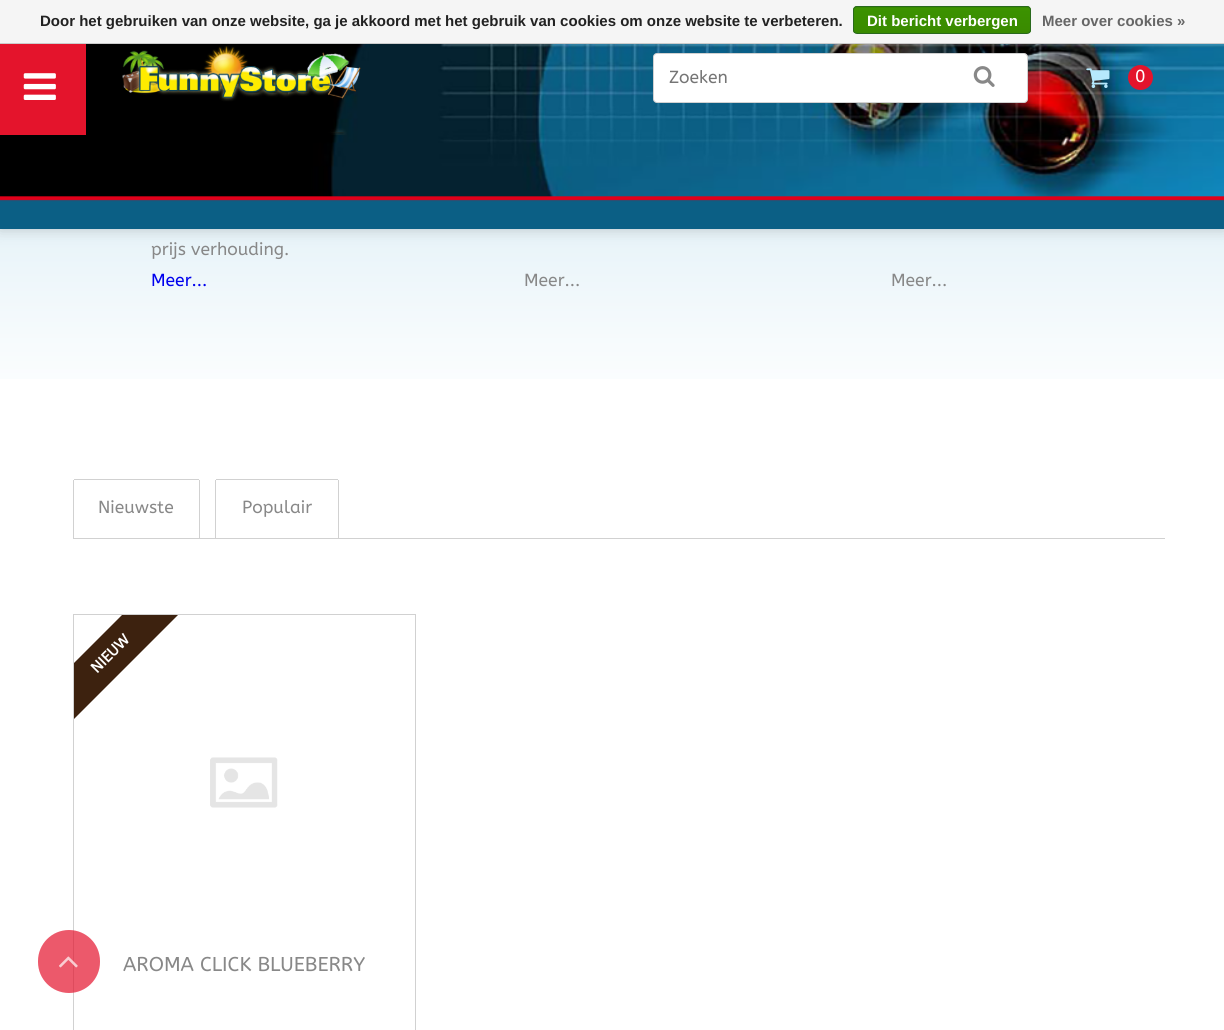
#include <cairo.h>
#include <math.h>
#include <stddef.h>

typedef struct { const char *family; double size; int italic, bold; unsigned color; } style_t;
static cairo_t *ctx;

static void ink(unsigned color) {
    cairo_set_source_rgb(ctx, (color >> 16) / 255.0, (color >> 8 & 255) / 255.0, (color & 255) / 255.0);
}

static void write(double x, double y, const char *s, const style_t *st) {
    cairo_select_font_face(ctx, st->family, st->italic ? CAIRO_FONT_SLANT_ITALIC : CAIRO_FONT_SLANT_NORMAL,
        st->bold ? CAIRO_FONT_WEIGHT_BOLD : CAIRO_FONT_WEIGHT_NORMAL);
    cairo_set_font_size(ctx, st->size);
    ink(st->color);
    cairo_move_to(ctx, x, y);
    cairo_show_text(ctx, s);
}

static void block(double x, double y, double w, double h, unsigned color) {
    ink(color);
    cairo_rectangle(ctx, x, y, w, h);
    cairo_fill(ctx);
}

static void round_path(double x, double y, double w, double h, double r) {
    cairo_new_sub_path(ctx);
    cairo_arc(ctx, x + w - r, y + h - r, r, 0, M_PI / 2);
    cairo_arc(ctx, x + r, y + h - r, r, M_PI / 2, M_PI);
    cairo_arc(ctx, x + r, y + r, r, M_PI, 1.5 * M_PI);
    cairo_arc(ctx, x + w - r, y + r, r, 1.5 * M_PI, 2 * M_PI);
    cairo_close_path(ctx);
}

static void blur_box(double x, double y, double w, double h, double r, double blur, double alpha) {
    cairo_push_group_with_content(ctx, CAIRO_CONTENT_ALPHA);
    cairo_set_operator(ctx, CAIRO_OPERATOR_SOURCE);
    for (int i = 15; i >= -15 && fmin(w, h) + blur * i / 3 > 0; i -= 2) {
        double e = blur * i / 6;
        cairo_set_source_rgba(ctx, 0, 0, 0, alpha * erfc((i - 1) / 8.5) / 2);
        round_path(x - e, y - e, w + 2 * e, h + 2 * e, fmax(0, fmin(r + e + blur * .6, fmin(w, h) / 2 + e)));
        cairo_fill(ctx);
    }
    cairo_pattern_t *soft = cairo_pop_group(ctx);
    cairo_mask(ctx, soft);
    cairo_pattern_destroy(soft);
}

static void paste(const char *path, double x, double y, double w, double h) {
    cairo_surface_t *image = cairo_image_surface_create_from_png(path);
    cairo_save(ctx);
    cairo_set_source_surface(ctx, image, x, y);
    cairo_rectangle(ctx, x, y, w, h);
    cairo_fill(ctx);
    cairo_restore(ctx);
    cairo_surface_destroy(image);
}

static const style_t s1 = {"Liberation Sans", 15, 0, 1, 0x222222};
static const style_t s2 = {"Liberation Sans", 15, 0, 1, 0xffffff};
static const style_t s3 = {"Liberation Sans", 15, 0, 1, 0x666666};
static const style_t s4 = {"ABeeZee", 17.5, 0, 0, 0x757575};
static const style_t s5 = {"ABeeZee", 17.5, 0, 0, 0xffffff};
static const style_t s6 = {"ABeeZee", 17.5, 0, 0, 0x888888};
static const style_t s7 = {"ABeeZee", 17.5, 0, 0, 0x0000ee};
static const style_t s8 = {"ABeeZee", 15, 0, 1, 0xffffff};
static const style_t s9 = {"ABeeZee", 20, 0, 0, 0x888888};

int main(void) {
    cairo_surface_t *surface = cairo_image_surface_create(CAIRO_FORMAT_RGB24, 1224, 1030);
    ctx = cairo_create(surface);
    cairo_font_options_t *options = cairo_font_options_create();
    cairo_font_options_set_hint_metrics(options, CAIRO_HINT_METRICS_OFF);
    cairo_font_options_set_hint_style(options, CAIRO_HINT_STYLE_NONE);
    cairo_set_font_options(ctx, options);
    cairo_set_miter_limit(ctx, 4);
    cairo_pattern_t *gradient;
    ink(0xffffff);
    cairo_paint(ctx);
    paste("pic1.png", 0, 229, 1224, 150);
    ink(0x000000);
    blur_box(0, 0, 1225, 229, 0, 7.5, 0.2);
    block(0, 0, 1224, 43, 0xf5f5f5);
    block(0, 43, 1224, 1, 0xcccccc);
    write(40, 26, "Door het gebruiken van onze website, ga je akkoord met het gebruik van cookies om onze website te verbeteren.", &s1);
    cairo_save(ctx);
    round_path(853, 6, 178, 28, 4);
    cairo_clip(ctx);
    gradient = cairo_pattern_create_linear(942, -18, 942, 7.5);
    cairo_pattern_add_color_stop_rgba(gradient, 0, 0.235, 0.576, 0, 1);
    cairo_pattern_add_color_stop_rgba(gradient, 1, 0.224, 0.541, 0, 1);
    cairo_set_source(ctx, gradient);
    cairo_pattern_destroy(gradient);
    cairo_rectangle(ctx, 853, 6, 178, 2);
    cairo_fill(ctx);
    gradient = cairo_pattern_create_linear(942, 7.5, 942, 33);
    cairo_pattern_add_color_stop_rgba(gradient, 0, 0.235, 0.576, 0, 1);
    cairo_pattern_add_color_stop_rgba(gradient, 1, 0.224, 0.541, 0, 1);
    cairo_set_source(ctx, gradient);
    cairo_pattern_destroy(gradient);
    cairo_rectangle(ctx, 853, 8, 178, 25);
    cairo_fill(ctx);
    cairo_restore(ctx);
    round_path(853.5, 6.5, 177, 27, 3.5);
    ink(0x29691d);
    cairo_set_line_width(ctx, 1);
    cairo_stroke(ctx);
    write(867, 26, "Dit bericht verbergen", &s2);
    write(1042, 26, "Meer over cookies »", &s3);
    paste("pic2.png", 0, 44, 1224, 185);
    block(0, 44, 86, 91, 0xe4142c);
    paste("pic3.png", 23, 73, 33, 27);
    paste("pic4.png", 122, 46, 239, 89);
    ink(0xffffff);
    round_path(653.5, 53.5, 374, 49, 3.5);
    cairo_fill_preserve(ctx);
    ink(0xd1d1d1);
    cairo_stroke(ctx);
    ink(0xffffff);
    round_path(654, 54, 312, 47, 4);
    cairo_fill(ctx);
    write(669, 83, "Zoeken", &s4);
    paste("pic5.png", 973, 66, 22, 21);
    paste("pic6.png", 1086, 68, 24, 20);
    ink(0xe4142c);
    cairo_arc(ctx, 1140.5, 77.5, 12.5, 0, 2 * M_PI);
    cairo_fill(ctx);
    write(1135, 82, "0", &s5);
    cairo_rectangle(ctx, 73.5, 614.5, 342, 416);
    ink(0xd1d1d1);
    cairo_stroke(ctx);
    cairo_set_source_rgba(ctx, 0.894, 0.078, 0.173, 0.7);
    round_path(38, 930, 62, 63, 31);
    cairo_fill(ctx);
    paste("pic7.png", 59, 956, 19, 12);
    write(151, 255, "prijs verhouding.", &s6);
    write(151, 286, "Meer...", &s7);
    write(524, 286, "Meer...", &s6);
    write(891, 286, "Meer...", &s6);
    block(73, 538, 1092, 1, 0xd1d1d1);
    block(74, 479, 125, 1, 0xd1d1d1);
    block(199, 480, 1, 58, 0xd1d1d1);
    block(73, 480, 1, 58, 0xd1d1d1);
    write(98, 513, "Nieuwste", &s6);
    block(216, 479, 122, 1, 0xd1d1d1);
    block(338, 480, 1, 58, 0xd1d1d1);
    block(215, 480, 1, 58, 0xd1d1d1);
    write(242, 513, "Populair", &s6);
    cairo_save(ctx);
    cairo_rectangle(ctx, 74, 615, 341, 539);
    cairo_clip(ctx);
    ink(0x3d220f);
    cairo_new_path(ctx);
    cairo_move_to(ctx, 44, 693);
    cairo_line_to(ctx, 150, 587);
    cairo_line_to(ctx, 178, 615);
    cairo_line_to(ctx, 72, 721);
    cairo_close_path(ctx);
    cairo_fill(ctx);
    cairo_restore(ctx);
    cairo_save(ctx);
    cairo_translate(ctx, 97, 674);
    cairo_rotate(ctx, -45 * M_PI / 180);
    write(0, 0, "NIEUW", &s8);
    cairo_restore(ctx);
    paste("pic8.png", 210, 757, 68, 51);
    write(123, 971, "AROMA CLICK BLUEBERRY", &s9);
    cairo_surface_write_to_png(surface, "screenshot.png");
    cairo_font_options_destroy(options);
    cairo_destroy(ctx);
    cairo_surface_destroy(surface);
    return 0;
}
